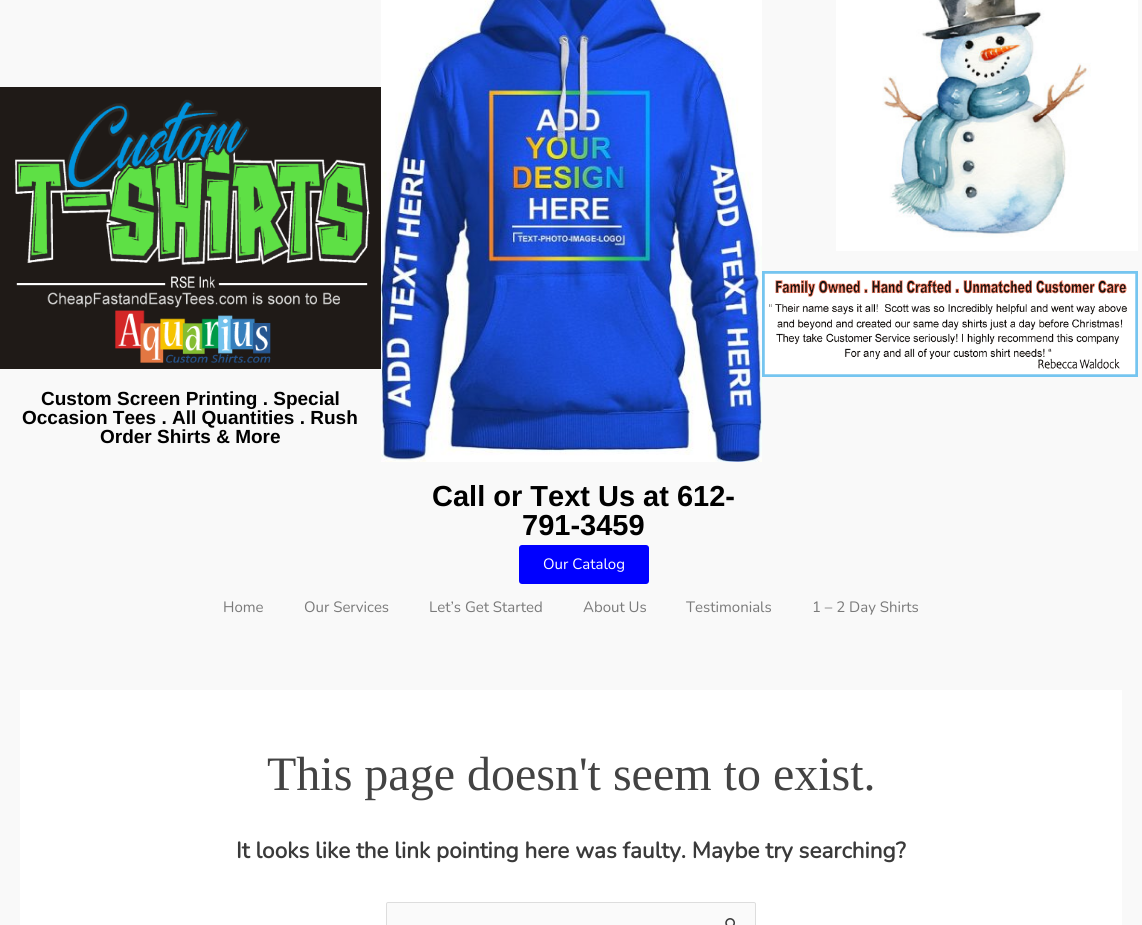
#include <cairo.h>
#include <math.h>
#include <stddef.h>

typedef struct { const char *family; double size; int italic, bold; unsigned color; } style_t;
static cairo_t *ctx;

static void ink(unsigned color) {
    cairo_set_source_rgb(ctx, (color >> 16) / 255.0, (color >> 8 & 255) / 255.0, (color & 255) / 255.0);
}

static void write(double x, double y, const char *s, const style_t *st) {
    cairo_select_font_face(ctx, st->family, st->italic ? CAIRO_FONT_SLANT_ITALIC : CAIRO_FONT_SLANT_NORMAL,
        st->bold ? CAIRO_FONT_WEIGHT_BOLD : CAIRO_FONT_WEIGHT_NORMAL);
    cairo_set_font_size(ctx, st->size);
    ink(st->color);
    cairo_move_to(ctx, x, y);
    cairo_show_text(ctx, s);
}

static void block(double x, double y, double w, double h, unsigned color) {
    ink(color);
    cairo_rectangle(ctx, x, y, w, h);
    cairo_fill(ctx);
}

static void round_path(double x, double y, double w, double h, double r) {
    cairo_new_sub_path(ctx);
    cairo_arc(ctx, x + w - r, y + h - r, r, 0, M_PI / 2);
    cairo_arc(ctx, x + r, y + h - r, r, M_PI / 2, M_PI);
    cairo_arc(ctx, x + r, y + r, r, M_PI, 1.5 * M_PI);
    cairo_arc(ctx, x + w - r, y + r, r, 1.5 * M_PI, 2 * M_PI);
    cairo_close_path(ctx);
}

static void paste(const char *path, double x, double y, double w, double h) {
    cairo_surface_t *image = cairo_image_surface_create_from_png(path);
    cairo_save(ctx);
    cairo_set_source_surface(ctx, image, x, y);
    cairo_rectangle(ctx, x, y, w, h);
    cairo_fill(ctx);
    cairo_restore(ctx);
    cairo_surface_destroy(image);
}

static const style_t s1 = {"Liberation Sans", 19, 0, 1, 0x000000};
static const style_t s2 = {"Liberation Sans", 29, 0, 1, 0x000000};
static const style_t s3 = {"Nunito ExtraLight", 15, 0, 0, 0xffffff};
static const style_t s4 = {"Nunito ExtraLight", 15, 0, 0, 0x7a7a7a};
static const style_t s5 = {"Liberation Serif", 48, 0, 0, 0x434343};
static const style_t s6 = {"Nunito", 22.5, 0, 1, 0x3a3a3a};

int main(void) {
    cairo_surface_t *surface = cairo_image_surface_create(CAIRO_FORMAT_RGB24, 1142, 925);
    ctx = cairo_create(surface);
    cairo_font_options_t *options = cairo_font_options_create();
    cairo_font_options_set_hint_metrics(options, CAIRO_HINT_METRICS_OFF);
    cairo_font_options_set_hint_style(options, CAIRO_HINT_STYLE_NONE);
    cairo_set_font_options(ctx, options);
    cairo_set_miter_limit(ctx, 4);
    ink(0xf9f9f9);
    cairo_paint(ctx);
    paste("pic1.png", 836, 0, 302, 251);
    paste("pic2.png", 762, 271, 376, 106);
    paste("pic3.png", 0, 87, 381, 282);
    write(41, 405, "Custom Screen Printing . Special", &s1);
    write(22, 424, "Occasion Tees . All Quantities . Rush", &s1);
    write(100, 443, "Order Shirts & More", &s1);
    paste("pic4.png", 381, 0, 381, 462);
    write(432, 506, "Call or Text Us at 612-", &s2);
    write(522, 535, "791-3459", &s2);
    ink(0x0000ff);
    round_path(519, 545, 130, 39, 3);
    cairo_fill(ctx);
    write(543, 569, "Our Catalog", &s3);
    write(223, 612, "Home", &s4);
    write(304, 612, "Our Services", &s4);
    write(429, 612, "Let’s Get Started", &s4);
    write(583, 612, "About Us", &s4);
    write(686, 612, "Testimonials", &s4);
    write(812, 612, "1 – 2 Day Shirts", &s4);
    block(20, 690, 1102, 235, 0xffffff);
    write(267, 790, "This page doesn't seem to exist.", &s5);
    write(236, 858, "It looks like the link pointing here was faulty. Maybe try searching?", &s6);
    ink(0xfafafa);
    round_path(386.5, 902.5, 369, 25, 1.5);
    cairo_fill_preserve(ctx);
    ink(0xdddddd);
    cairo_set_line_width(ctx, 1);
    cairo_stroke(ctx);
    paste("pic5.png", 725, 918, 10, 7);
    cairo_surface_write_to_png(surface, "screenshot.png");
    cairo_font_options_destroy(options);
    cairo_destroy(ctx);
    cairo_surface_destroy(surface);
    return 0;
}
